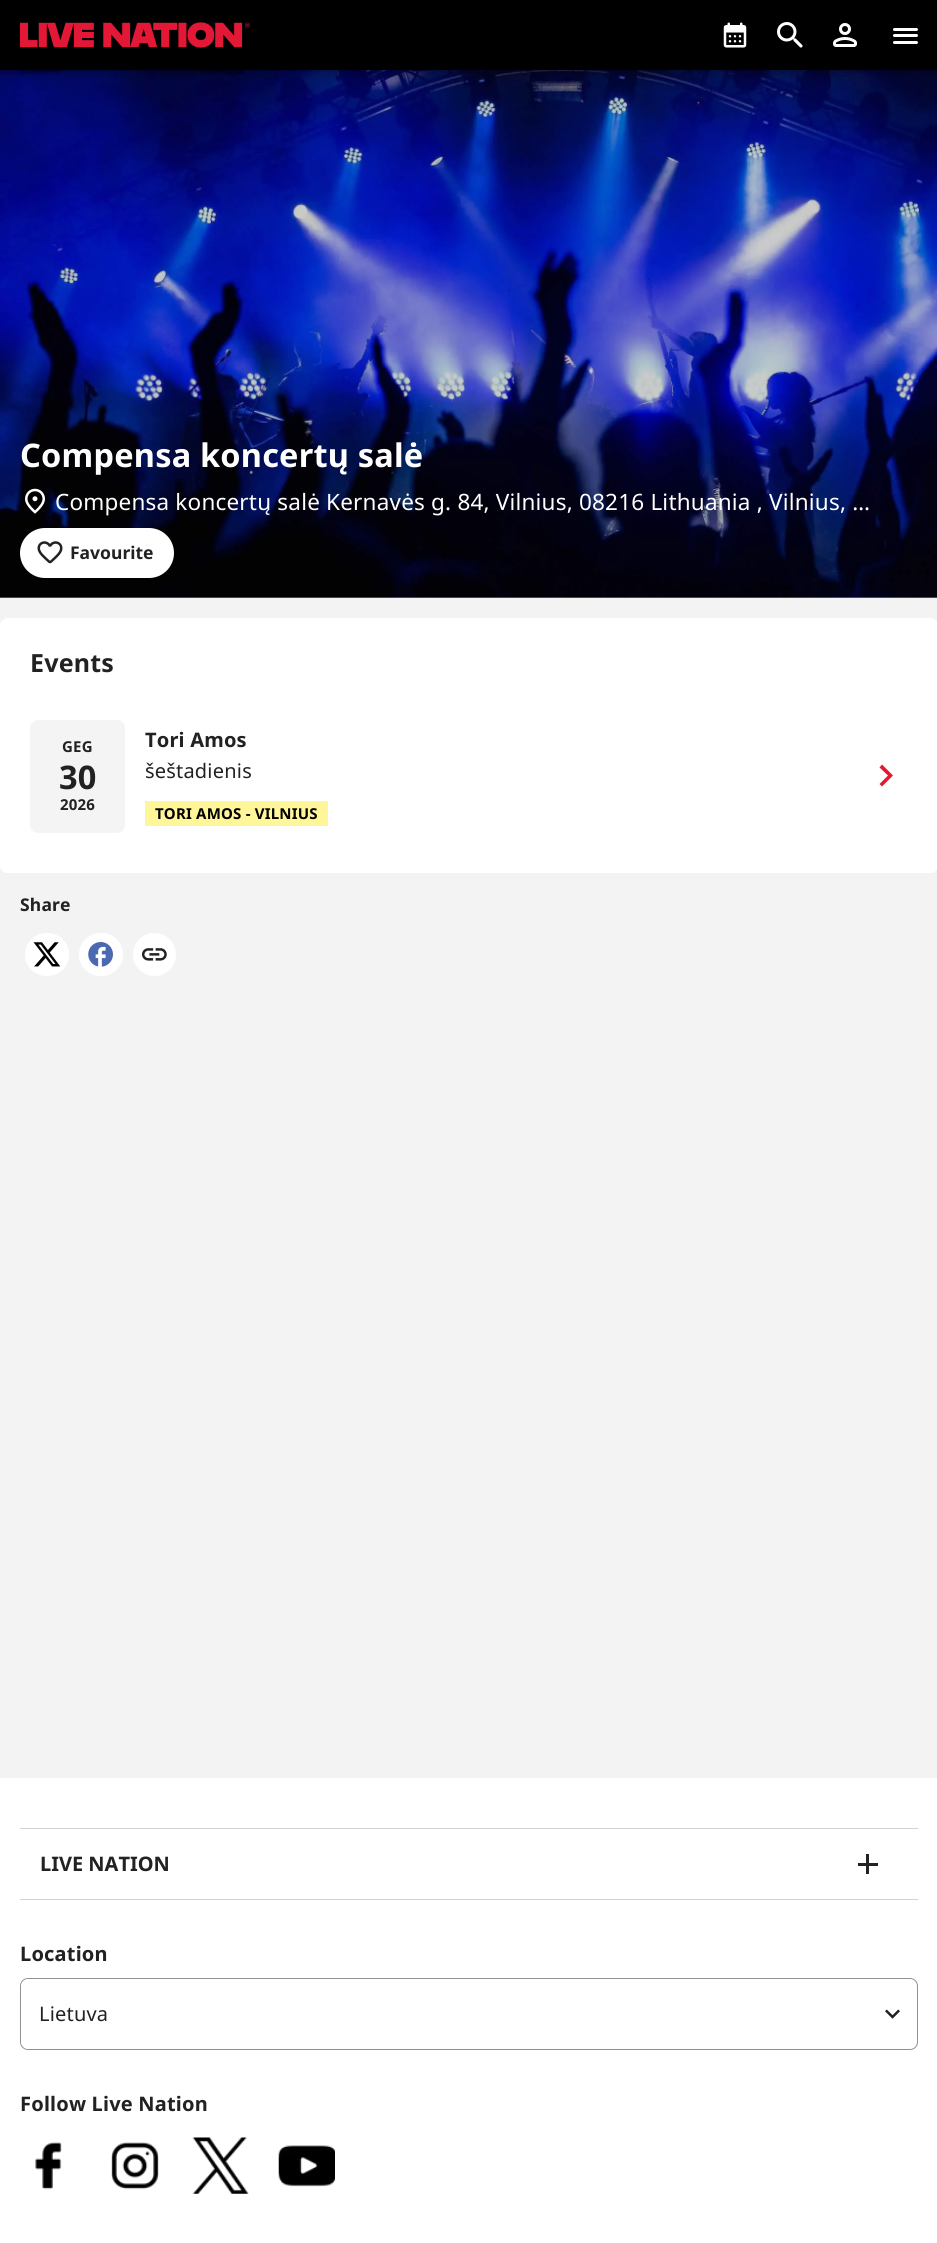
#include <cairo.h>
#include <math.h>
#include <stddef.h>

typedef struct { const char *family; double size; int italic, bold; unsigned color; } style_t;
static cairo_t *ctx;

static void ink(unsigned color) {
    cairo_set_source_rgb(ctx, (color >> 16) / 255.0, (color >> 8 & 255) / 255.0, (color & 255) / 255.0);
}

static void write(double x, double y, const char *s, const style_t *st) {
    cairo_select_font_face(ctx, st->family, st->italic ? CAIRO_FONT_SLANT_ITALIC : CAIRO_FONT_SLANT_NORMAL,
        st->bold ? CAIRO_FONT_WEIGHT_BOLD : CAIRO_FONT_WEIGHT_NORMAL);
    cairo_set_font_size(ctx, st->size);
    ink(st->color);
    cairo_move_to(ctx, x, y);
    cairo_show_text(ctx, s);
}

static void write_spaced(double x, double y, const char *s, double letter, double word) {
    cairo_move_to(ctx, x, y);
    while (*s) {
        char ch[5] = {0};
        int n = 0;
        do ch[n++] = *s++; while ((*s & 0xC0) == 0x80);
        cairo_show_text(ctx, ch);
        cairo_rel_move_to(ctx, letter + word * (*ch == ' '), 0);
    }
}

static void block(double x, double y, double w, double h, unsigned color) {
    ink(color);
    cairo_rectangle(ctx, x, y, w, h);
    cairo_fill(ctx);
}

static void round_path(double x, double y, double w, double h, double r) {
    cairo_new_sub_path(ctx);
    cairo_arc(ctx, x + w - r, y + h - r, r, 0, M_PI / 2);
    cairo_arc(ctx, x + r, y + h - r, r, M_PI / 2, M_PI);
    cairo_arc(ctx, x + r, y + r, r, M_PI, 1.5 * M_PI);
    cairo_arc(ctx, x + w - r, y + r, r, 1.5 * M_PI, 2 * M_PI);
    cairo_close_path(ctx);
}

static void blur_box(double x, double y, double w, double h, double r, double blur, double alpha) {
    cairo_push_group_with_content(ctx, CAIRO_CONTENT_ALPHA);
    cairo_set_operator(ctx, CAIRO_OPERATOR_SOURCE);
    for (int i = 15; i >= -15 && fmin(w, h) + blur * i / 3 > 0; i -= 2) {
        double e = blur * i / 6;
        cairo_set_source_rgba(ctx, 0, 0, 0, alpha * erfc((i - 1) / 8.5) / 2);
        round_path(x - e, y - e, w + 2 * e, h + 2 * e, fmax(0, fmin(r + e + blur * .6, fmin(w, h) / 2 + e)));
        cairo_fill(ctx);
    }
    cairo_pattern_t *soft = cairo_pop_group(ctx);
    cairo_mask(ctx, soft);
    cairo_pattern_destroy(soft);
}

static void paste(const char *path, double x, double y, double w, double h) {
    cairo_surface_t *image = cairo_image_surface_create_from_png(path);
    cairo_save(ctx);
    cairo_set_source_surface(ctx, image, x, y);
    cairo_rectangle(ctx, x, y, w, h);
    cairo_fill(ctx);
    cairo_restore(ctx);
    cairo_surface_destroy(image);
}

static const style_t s1 = {"Noto Sans", 17.5, 0, 1, 0x222222};
static const style_t s2 = {"Noto Sans", 20, 0, 1, 0x222222};

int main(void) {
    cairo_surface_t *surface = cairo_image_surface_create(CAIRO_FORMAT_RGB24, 937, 2243);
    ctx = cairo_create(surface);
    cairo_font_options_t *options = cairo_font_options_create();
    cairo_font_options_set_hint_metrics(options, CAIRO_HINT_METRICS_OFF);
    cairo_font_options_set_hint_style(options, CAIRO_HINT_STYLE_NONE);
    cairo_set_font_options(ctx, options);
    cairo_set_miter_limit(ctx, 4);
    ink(0xf3f3f3);
    cairo_paint(ctx);
    block(0, 597, 937, 1, 0xc2c2c2);
    paste("pic8.png", 0, 597, 937, 1);
    paste("pic5.png", 0, 70, 937, 528);
    ink(0x000000);
    blur_box(0, 1, 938, 70, 0, 6, 0.12);
    blur_box(0, 5, 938, 70, 0, 3, 0.14);
    blur_box(1, 4, 935, 67, 0, 2.5, 0.2);
    block(0, 0, 937, 70, 0x000000);
    paste("pic1.png", 20, 22, 230, 26);
    paste("pic2.png", 723, 22, 24, 26);
    paste("pic3.png", 777, 22, 26, 26);
    paste("pic4.png", 833, 23, 24, 24);
    ink(0xffffff);
    round_path(893, 28, 25, 3, 1.5);
    cairo_fill(ctx);
    round_path(893, 34, 25, 3, 1.5);
    cairo_fill(ctx);
    round_path(893, 41, 25, 3, 1.5);
    cairo_fill(ctx);
    cairo_select_font_face(ctx, "Noto Sans", CAIRO_FONT_SLANT_NORMAL, CAIRO_FONT_WEIGHT_BOLD);
    cairo_set_font_size(ctx, 32.5);
    write_spaced(20, 467, "Compensa koncertų salė", 0.2, 0);
    paste("pic6.png", 25, 488, 20, 26);
    cairo_select_font_face(ctx, "Noto Sans", CAIRO_FONT_SLANT_NORMAL, CAIRO_FONT_WEIGHT_NORMAL);
    cairo_set_font_size(ctx, 22.5);
    write_spaced(55, 510, "Compensa koncertų salė Kernavės g. 84, Vilnius, 08216 Lithuania , Vilnius, …", 0.2, 0);
    round_path(20, 528, 154, 50, 25);
    cairo_fill(ctx);
    paste("pic7.png", 37, 541, 26, 23);
    write(70, 559, "Favourite", &s1);
    ink(0xffffff);
    round_path(0, 618, 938, 255, 8);
    cairo_fill(ctx);
    cairo_set_font_size(ctx, 25);
    ink(0x222222);
    write_spaced(30, 672, "Events", 0.2, 0);
    ink(0xffffff);
    cairo_new_path(ctx);
    cairo_move_to(ctx, 0, 700);
    cairo_line_to(ctx, 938, 700);
    cairo_line_to(ctx, 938, 865);
    cairo_curve_to(ctx, 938, 869.5, 934.5, 873, 930, 873);
    cairo_line_to(ctx, 8, 873);
    cairo_curve_to(ctx, 3.5, 873, 0, 869.5, 0, 865);
    cairo_close_path(ctx);
    cairo_fill(ctx);
    ink(0xf4f4f4);
    round_path(30, 720, 95, 113, 8);
    cairo_fill(ctx);
    cairo_set_font_size(ctx, 15);
    ink(0x222222);
    write_spaced(62, 752, "GEG", 0.2, 0);
    cairo_set_font_size(ctx, 32.5);
    write_spaced(59, 789, "30", 0.2, 0);
    cairo_set_font_size(ctx, 15);
    write_spaced(60, 810, "2026", 0.2, 0);
    cairo_set_font_size(ctx, 20);
    write_spaced(145, 747, "Tori Amos", 0.2, 0);
    cairo_select_font_face(ctx, "Noto Sans", CAIRO_FONT_SLANT_NORMAL, CAIRO_FONT_WEIGHT_NORMAL);
    write_spaced(145, 778, "šeštadienis", 0.2, 0);
    block(145, 801, 183, 25, 0xfff599);
    cairo_select_font_face(ctx, "Noto Sans", CAIRO_FONT_SLANT_NORMAL, CAIRO_FONT_WEIGHT_BOLD);
    cairo_set_font_size(ctx, 15);
    ink(0x000000);
    write_spaced(155, 819, "TORI AMOS - VILNIUS", 0.2, 0);
    ink(0xe21836);
    cairo_new_path(ctx);
    cairo_move_to(ctx, 882, 764.5);
    cairo_line_to(ctx, 879.5, 767.5);
    cairo_line_to(ctx, 888, 775.5);
    cairo_line_to(ctx, 879.5, 784);
    cairo_line_to(ctx, 882, 786.5);
    cairo_line_to(ctx, 893, 775.5);
    cairo_close_path(ctx);
    cairo_fill(ctx);
    cairo_set_font_size(ctx, 17.5);
    ink(0x222222);
    write_spaced(20, 911, "Share", 0.2, 0);
    ink(0xffffff);
    round_path(25, 933, 44, 43, 21.5);
    cairo_fill(ctx);
    paste("pic9.png", 33, 942, 28, 25);
    round_path(79, 933, 44, 43, 21.5);
    cairo_fill(ctx);
    paste("pic10.png", 88, 942, 25, 25);
    cairo_arc(ctx, 154.5, 954.5, 21.5, 0, 2 * M_PI);
    cairo_fill(ctx);
    paste("pic11.png", 142, 948, 25, 13);
    block(0, 1778, 937, 465, 0xffffff);
    block(20, 1828, 898, 1, 0xd3d3d3);
    block(20, 1899, 898, 1, 0xd3d3d3);
    write(40, 1871, "LIVE NATION", &s2);
    block(858, 1863, 20, 3, 0x222222);
    block(866, 1854, 3, 20, 0x222222);
    write_spaced(20, 1961, "Location", 0.2, 0);
    round_path(20.5, 1978.5, 897, 71, 7.5);
    ink(0x919191);
    cairo_set_line_width(ctx, 1);
    cairo_stroke(ctx);
    ink(0xffffff);
    round_path(21, 1979, 895, 70, 8);
    cairo_fill(ctx);
    cairo_select_font_face(ctx, "Noto Sans", CAIRO_FONT_SLANT_NORMAL, CAIRO_FONT_WEIGHT_NORMAL);
    ink(0x222222);
    write_spaced(39, 2021, "Lietuva", 0.2, 0);
    paste("pic12.png", 885, 2009, 15, 10);
    cairo_select_font_face(ctx, "Noto Sans", CAIRO_FONT_SLANT_NORMAL, CAIRO_FONT_WEIGHT_BOLD);
    write_spaced(20, 2111, "Follow Live Nation", 0.2, 0);
    paste("pic13.png", 35, 2142, 27, 48);
    paste("pic14.png", 111, 2142, 48, 48);
    paste("pic15.png", 192, 2137, 57, 57);
    paste("pic16.png", 278, 2145, 57, 42);
    cairo_surface_write_to_png(surface, "screenshot.png");
    cairo_font_options_destroy(options);
    cairo_destroy(ctx);
    cairo_surface_destroy(surface);
    return 0;
}
